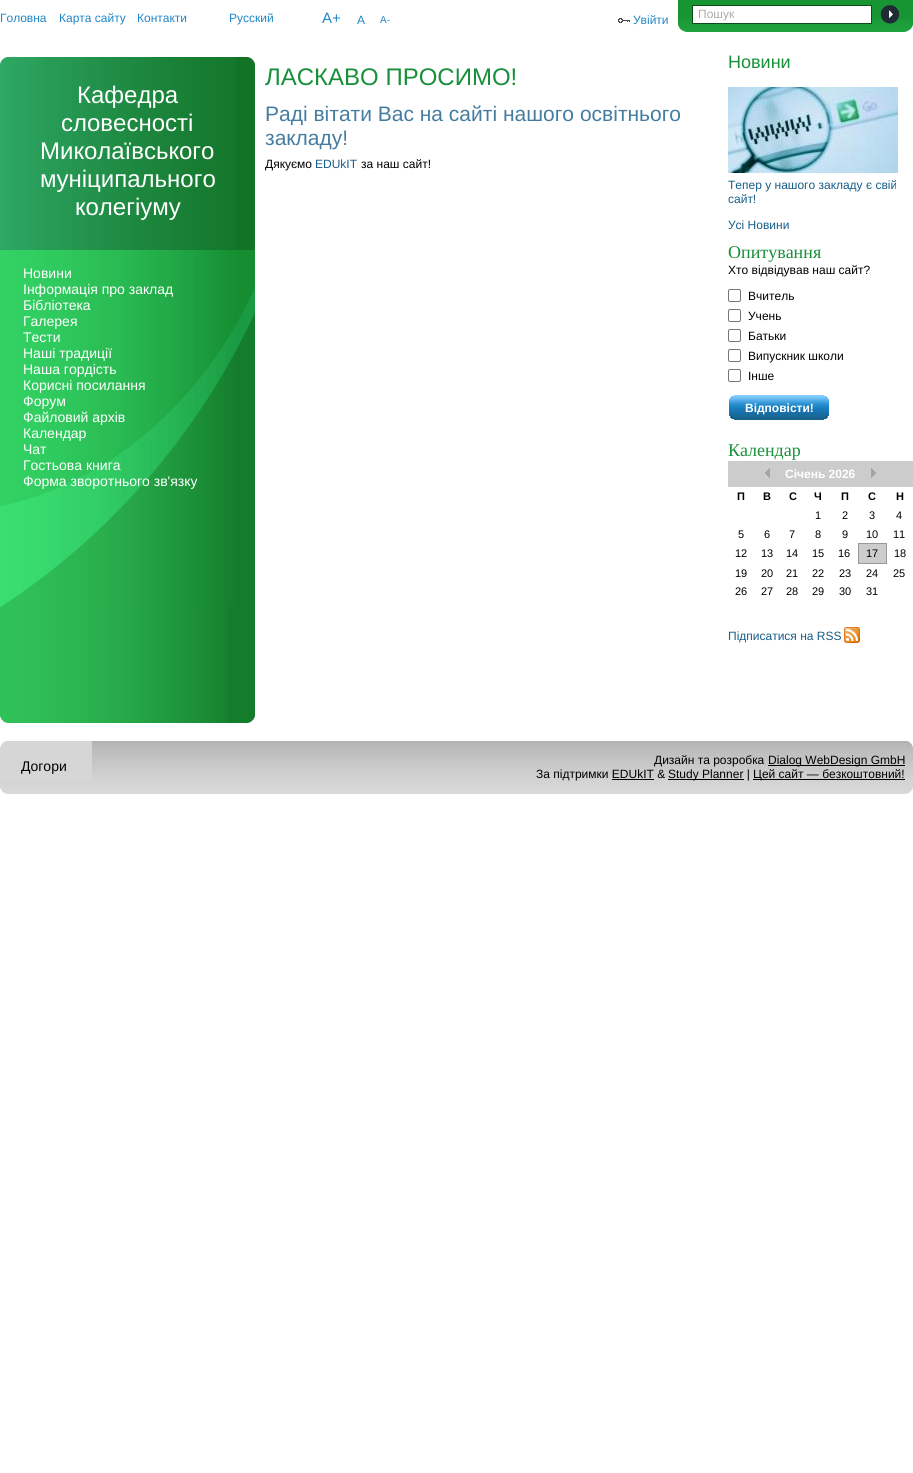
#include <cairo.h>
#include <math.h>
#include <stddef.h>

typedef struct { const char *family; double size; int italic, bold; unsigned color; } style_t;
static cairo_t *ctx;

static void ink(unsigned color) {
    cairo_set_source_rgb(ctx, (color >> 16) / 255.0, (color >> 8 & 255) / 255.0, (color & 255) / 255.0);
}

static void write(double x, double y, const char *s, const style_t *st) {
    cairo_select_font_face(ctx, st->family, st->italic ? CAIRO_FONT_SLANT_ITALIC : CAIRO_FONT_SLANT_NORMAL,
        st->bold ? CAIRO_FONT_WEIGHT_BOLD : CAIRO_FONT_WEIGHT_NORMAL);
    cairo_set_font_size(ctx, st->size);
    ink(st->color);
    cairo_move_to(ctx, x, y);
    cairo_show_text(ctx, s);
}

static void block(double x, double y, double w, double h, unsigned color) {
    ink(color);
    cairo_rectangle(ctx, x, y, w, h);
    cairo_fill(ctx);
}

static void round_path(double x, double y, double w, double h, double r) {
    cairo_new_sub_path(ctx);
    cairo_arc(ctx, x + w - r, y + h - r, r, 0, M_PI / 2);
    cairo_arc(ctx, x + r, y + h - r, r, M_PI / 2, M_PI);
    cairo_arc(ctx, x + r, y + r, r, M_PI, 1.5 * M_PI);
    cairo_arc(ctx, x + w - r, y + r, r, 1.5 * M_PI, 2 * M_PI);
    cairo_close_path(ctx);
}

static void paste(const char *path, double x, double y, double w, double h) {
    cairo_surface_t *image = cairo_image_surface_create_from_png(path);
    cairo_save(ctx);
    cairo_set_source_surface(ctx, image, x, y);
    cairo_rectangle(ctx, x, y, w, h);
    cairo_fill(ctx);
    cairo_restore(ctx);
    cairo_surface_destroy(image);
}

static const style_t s1 = {"Liberation Sans", 12, 0, 0, 0x2086c6};
static const style_t s2 = {"Liberation Sans", 15, 0, 0, 0x2086c6};
static const style_t s3 = {"Liberation Sans", 10, 0, 0, 0x2086c6};
static const style_t s4 = {"Liberation Sans", 12, 0, 0, 0xaaaaaa};
static const style_t s5 = {"Liberation Sans", 24, 0, 0, 0xffffff};
static const style_t s6 = {"Liberation Sans", 14, 0, 0, 0xffffff};
static const style_t s7 = {"Liberation Sans", 24, 0, 0, 0x188f3a};
static const style_t s8 = {"Liberation Sans", 21, 0, 0, 0x457da1};
static const style_t s9 = {"Liberation Sans", 12, 0, 0, 0x000000};
static const style_t s10 = {"Liberation Sans", 12, 0, 0, 0x165d89};
static const style_t s11 = {"Liberation Sans", 18, 0, 0, 0x188f3a};
static const style_t s12 = {"Liberation Serif", 18, 0, 0, 0x188f3a};
static const style_t s13 = {"Liberation Sans", 12, 0, 1, 0xffffff};
static const style_t s14 = {"Liberation Sans", 11, 0, 1, 0x000000};
static const style_t s15 = {"Liberation Sans", 11, 0, 0, 0x000000};
static const style_t s16 = {"Liberation Sans", 14, 0, 0, 0x000000};

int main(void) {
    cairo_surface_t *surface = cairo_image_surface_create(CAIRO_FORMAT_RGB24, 913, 1473);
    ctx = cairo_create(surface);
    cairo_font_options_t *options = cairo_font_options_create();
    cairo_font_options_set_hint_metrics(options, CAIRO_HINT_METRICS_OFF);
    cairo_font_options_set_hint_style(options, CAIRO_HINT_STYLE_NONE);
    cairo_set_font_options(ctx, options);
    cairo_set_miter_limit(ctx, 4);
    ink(0xffffff);
    cairo_paint(ctx);
    write(0, 22, "Головна", &s1);
    write(59, 22, "Карта сайту", &s1);
    write(137, 22, "Контакти", &s1);
    write(229, 22, "Русский", &s1);
    write(322, 23, "A+", &s2);
    write(357, 24, "А", &s1);
    write(380, 23, "A-", &s3);
    paste("pic1.png", 618, 18, 12, 5);
    write(633, 24, "Увійти", &s1);
    block(678, 0, 235, 19, 0x189533);
    paste("pic2.png", 678, 19, 235, 13);
    ink(0xffffff);
    cairo_rectangle(ctx, 692.5, 5.5, 179, 18);
    cairo_fill_preserve(ctx);
    ink(0x0c4b1a);
    cairo_set_line_width(ctx, 1);
    cairo_stroke(ctx);
    write(698, 18, "Пошук", &s4);
    paste("pic3.png", 880, 5, 19, 19);
    paste("pic4.png", 678, 25, 235, 7);
    block(236, 57, 19, 193, 0x127327);
    paste("pic5.png", 0, 57, 236, 193);
    paste("pic6.png", 0, 57, 255, 7);
    write(77, 103, "Кафедра", &s5);
    write(61, 131, "словесності", &s5);
    write(40, 159, "Миколаївського", &s5);
    write(40, 187, "муніципального", &s5);
    write(75, 215, "колегіуму", &s5);
    block(228, 607, 27, 116, 0x147d2b);
    paste("pic7.png", 0, 607, 228, 116);
    paste("pic8.png", 0, 250, 255, 357);
    write(23, 278, "Новини", &s6);
    write(23, 294, "Інформація про заклад", &s6);
    write(23, 310, "Бібліотека", &s6);
    write(23, 326, "Галерея", &s6);
    write(23, 342, "Тести", &s6);
    write(23, 358, "Наші традиції", &s6);
    write(23, 374, "Наша гордість", &s6);
    write(23, 390, "Корисні посилання", &s6);
    write(23, 406, "Форум", &s6);
    write(23, 422, "Файловий архів", &s6);
    write(23, 438, "Календар", &s6);
    write(23, 454, "Чат", &s6);
    write(23, 470, "Гостьова книга", &s6);
    write(23, 486, "Форма зворотнього зв'язку", &s6);
    paste("pic9.png", 0, 716, 7, 7);
    paste("pic10.png", 248, 716, 7, 7);
    write(265, 85, "ЛАСКАВО ПРОСИМО!", &s7);
    write(265, 121, "Раді вітати Вас на сайті нашого освітнього", &s8);
    write(265, 145, "закладу!", &s8);
    write(265, 168, "Дякуємо", &s9);
    write(315, 168, "EDUkIT", &s10);
    write(361, 168, "за наш сайт!", &s9);
    write(728, 68, "Новини", &s11);
    paste("pic11.png", 728, 87, 170, 86);
    write(728, 189, "Тепер у нашого закладу є свій", &s10);
    write(728, 203, "сайт!", &s10);
    write(728, 229, "Усі Новини", &s10);
    write(728, 258, "Опитування", &s12);
    write(728, 274, "Хто відвідував наш сайт?", &s9);
    round_path(728.5, 289.5, 12, 12, 1.5);
    ink(0x767676);
    cairo_stroke(ctx);
    write(748, 300, "Вчитель", &s9);
    round_path(728.5, 309.5, 12, 12, 1.5);
    ink(0x767676);
    cairo_stroke(ctx);
    write(748, 320, "Учень", &s9);
    round_path(728.5, 329.5, 12, 12, 1.5);
    ink(0x767676);
    cairo_stroke(ctx);
    write(748, 340, "Батьки", &s9);
    round_path(728.5, 349.5, 12, 12, 1.5);
    ink(0x767676);
    cairo_stroke(ctx);
    write(748, 360, "Випускник школи", &s9);
    round_path(728.5, 369.5, 12, 12, 1.5);
    ink(0x767676);
    cairo_stroke(ctx);
    write(748, 380, "Інше", &s9);
    paste("pic12.png", 729, 395, 100, 25);
    write(745, 412, "Відповісти!", &s13);
    write(728, 456, "Календар", &s12);
    block(728, 461, 185, 26, 0xcccccc);
    paste("pic13.png", 765, 468, 5, 10);
    write(785, 478, "Січень 2026", &s13);
    paste("pic14.png", 871, 468, 5, 10);
    write(737, 500, "П", &s14);
    write(763, 500, "В", &s14);
    write(789, 500, "С", &s14);
    write(814, 500, "Ч", &s14);
    write(841, 500, "П", &s14);
    write(868, 500, "С", &s14);
    write(896, 500, "Н", &s14);
    write(815, 519, "1", &s15);
    write(842, 519, "2", &s15);
    write(869, 519, "3", &s15);
    write(896, 519, "4", &s15);
    write(738, 538, "5", &s15);
    write(764, 538, "6", &s15);
    write(789, 538, "7", &s15);
    write(815, 538, "8", &s15);
    write(842, 538, "9", &s15);
    write(866, 538, "10", &s15);
    write(893, 538, "11", &s15);
    write(735, 557, "12", &s15);
    write(761, 557, "13", &s15);
    write(786, 557, "14", &s15);
    write(812, 557, "15", &s15);
    write(838, 557, "16", &s15);
    block(859, 544, 27, 19, 0xcccccc);
    block(858, 543, 29, 1, 0x999999);
    block(886, 543, 1, 21, 0x999999);
    block(858, 563, 29, 1, 0x999999);
    block(858, 543, 1, 21, 0x999999);
    write(866, 557, "17", &s15);
    write(894, 557, "18", &s15);
    write(735, 577, "19", &s15);
    write(761, 577, "20", &s15);
    write(786, 577, "21", &s15);
    write(812, 577, "22", &s15);
    write(839, 577, "23", &s15);
    write(866, 577, "24", &s15);
    write(893, 577, "25", &s15);
    write(735, 595, "26", &s15);
    write(761, 595, "27", &s15);
    write(786, 595, "28", &s15);
    write(812, 595, "29", &s15);
    write(839, 595, "30", &s15);
    write(866, 595, "31", &s15);
    paste("pic15.png", 844, 627, 16, 16);
    write(728, 640, "Підписатися на RSS", &s10);
    block(92, 741, 815, 2, 0xb2b2b2);
    paste("pic16.png", 0, 743, 913, 51);
    paste("pic17.png", 907, 741, 6, 6);
    block(0, 741, 92, 41, 0xd6d6d6);
    paste("pic18.png", 0, 741, 6, 6);
    write(21, 771, "Догори", &s16);
    write(654, 764, "Дизайн та розробка", &s9);
    block(768, 765, 137, 1, 0x000000);
    write(768, 764, "Dialog WebDesign GmbH", &s9);
    write(536, 778, "За підтримки EDUkIT &", &s9);
    block(668, 779, 76, 1, 0x000000);
    write(668, 778, "Study Planner |", &s9);
    block(753, 779, 152, 1, 0x000000);
    write(753, 778, "Цей сайт — безкоштовний!", &s9);
    block(612, 779, 42, 1, 0x000000);
    paste("pic19.png", 0, 788, 913, 6);
    cairo_surface_write_to_png(surface, "screenshot.png");
    cairo_font_options_destroy(options);
    cairo_destroy(ctx);
    cairo_surface_destroy(surface);
    return 0;
}
